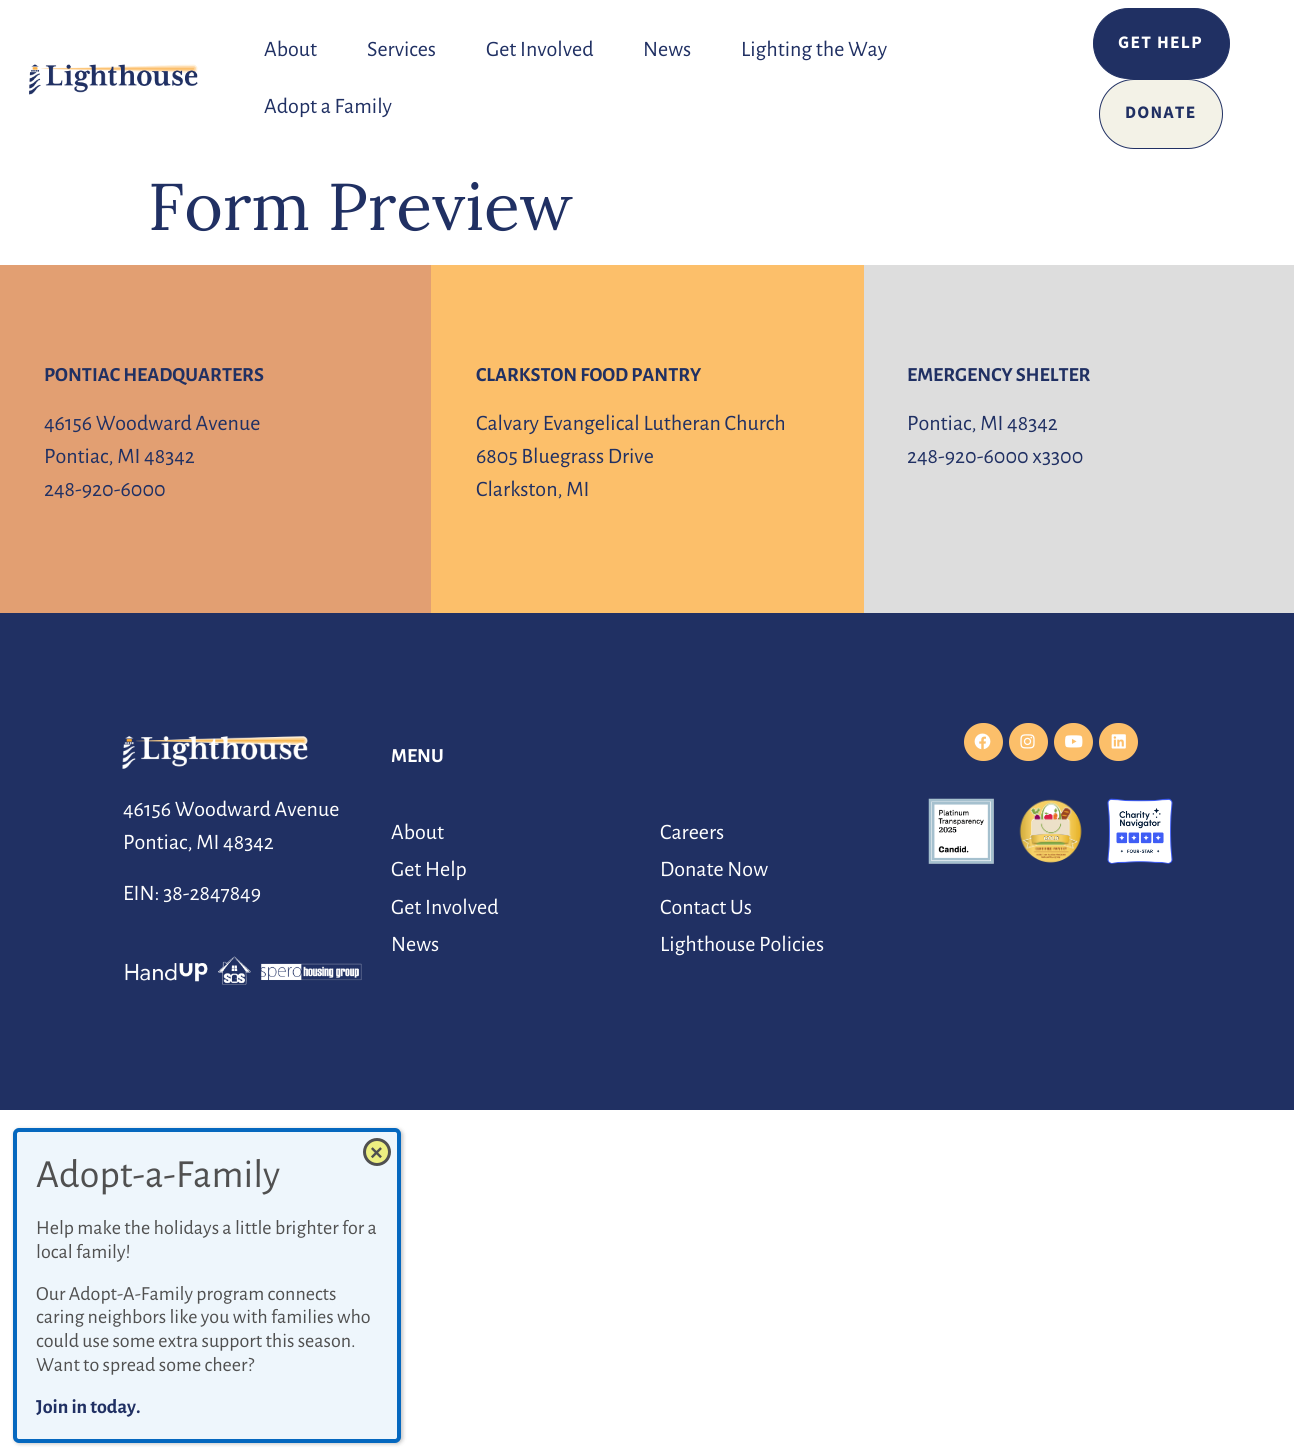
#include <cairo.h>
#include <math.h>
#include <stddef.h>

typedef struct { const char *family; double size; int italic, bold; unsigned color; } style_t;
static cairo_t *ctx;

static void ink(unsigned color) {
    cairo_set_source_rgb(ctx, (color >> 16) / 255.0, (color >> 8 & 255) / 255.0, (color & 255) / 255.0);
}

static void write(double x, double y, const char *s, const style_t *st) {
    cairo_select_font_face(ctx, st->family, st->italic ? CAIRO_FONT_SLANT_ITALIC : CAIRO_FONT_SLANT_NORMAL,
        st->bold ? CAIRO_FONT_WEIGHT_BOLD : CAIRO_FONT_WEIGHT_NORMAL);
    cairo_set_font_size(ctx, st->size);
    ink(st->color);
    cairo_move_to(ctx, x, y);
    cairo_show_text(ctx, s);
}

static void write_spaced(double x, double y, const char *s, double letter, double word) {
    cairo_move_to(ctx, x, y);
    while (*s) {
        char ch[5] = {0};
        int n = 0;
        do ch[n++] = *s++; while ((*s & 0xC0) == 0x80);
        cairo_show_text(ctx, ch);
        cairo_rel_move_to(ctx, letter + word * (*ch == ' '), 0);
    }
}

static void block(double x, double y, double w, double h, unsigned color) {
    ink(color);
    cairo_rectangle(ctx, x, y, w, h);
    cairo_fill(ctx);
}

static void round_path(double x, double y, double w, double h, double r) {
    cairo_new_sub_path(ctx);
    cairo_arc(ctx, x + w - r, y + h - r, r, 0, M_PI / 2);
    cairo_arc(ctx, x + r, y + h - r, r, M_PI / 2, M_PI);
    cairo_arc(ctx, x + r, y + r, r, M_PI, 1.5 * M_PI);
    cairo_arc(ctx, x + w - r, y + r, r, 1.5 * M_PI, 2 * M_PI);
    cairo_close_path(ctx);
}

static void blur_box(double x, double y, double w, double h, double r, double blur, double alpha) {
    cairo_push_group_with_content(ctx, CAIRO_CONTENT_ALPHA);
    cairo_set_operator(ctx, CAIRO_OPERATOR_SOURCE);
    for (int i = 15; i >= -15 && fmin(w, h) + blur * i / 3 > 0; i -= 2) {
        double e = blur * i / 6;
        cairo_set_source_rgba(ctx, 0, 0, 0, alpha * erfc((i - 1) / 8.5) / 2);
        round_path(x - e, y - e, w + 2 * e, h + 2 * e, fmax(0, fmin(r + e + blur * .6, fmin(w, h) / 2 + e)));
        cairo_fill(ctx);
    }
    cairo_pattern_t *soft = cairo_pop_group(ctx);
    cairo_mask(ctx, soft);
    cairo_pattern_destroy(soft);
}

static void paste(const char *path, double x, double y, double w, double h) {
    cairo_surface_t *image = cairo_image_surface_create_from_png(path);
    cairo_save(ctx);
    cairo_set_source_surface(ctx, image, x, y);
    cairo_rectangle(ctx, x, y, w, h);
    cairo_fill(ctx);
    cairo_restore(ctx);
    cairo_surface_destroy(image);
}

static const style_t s1 = {"Alegreya Sans", 22, 0, 0, 0x203063};
static const style_t s2 = {"Lora", 66, 0, 0, 0x203063};
static const style_t s3 = {"Alegreya Sans", 20, 0, 1, 0x203063};
static const style_t s4 = {"Alegreya Sans", 22, 0, 0, 0xffffff};
static const style_t s5 = {"Alegreya Sans", 20, 0, 1, 0xffffff};
static const style_t s6 = {"Liberation Sans", 22, 0, 1, 0x505050};
static const style_t s7 = {"Alegreya Sans", 40, 0, 0, 0x505050};
static const style_t s8 = {"Alegreya Sans", 20, 0, 0, 0x505050};

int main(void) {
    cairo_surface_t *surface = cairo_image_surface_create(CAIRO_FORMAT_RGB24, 1294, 1455);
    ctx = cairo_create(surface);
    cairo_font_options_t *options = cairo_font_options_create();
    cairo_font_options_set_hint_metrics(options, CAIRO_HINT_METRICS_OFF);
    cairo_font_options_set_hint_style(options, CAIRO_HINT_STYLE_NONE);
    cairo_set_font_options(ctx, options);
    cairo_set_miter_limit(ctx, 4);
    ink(0xffffff);
    cairo_paint(ctx);
    paste("pic1.png", 29, 64, 169, 31);
    write(264, 56, "About", &s1);
    write(367, 56, "Services", &s1);
    write(486, 56, "Get Involved", &s1);
    write(643, 56, "News", &s1);
    write(741, 56, "Lighting the Way", &s1);
    write(264, 113, "Adopt a Family", &s1);
    round_path(1093.5, 8.5, 136, 70, 35);
    cairo_fill_preserve(ctx);
    cairo_set_line_width(ctx, 1);
    cairo_stroke(ctx);
    cairo_select_font_face(ctx, "Source Sans 3", CAIRO_FONT_SLANT_NORMAL, CAIRO_FONT_WEIGHT_BOLD);
    cairo_set_font_size(ctx, 17.5);
    ink(0xffffff);
    write_spaced(1118, 48, "GET HELP", 1.25, 0);
    ink(0xf3f2e7);
    round_path(1099.5, 79.5, 123, 69, 34.5);
    cairo_fill_preserve(ctx);
    ink(0x203063);
    cairo_stroke(ctx);
    write_spaced(1125, 118, "DONATE", 1.25, 0);
    write(148, 230, "Form Preview", &s2);
    block(431, 265, 433, 348, 0xfcbf6a);
    block(0, 265, 431, 348, 0xe29f72);
    write(44, 381, "PONTIAC HEADQUARTERS", &s3);
    write(44, 430, "46156 Woodward Avenue", &s1);
    write(44, 463, "Pontiac, MI 48342", &s1);
    write(44, 496, "248-920-6000", &s1);
    write(476, 381, "CLARKSTON FOOD PANTRY", &s3);
    write(476, 430, "Calvary Evangelical Lutheran Church", &s1);
    write(476, 463, "6805 Bluegrass Drive", &s1);
    write(476, 496, "Clarkston, MI", &s1);
    block(864, 265, 430, 348, 0xdddddd);
    write(907, 381, "EMERGENCY SHELTER", &s3);
    write(907, 430, "Pontiac, MI 48342", &s1);
    write(907, 463, "248-920-6000 x3300", &s1);
    block(0, 613, 1294, 497, 0x203063);
    paste("pic2.png", 122, 736, 186, 33);
    write(123, 816, "46156 Woodward Avenue", &s4);
    write(123, 849, "Pontiac, MI 48342", &s4);
    write(123, 900, "EIN: 38-2847849", &s4);
    paste("pic3.png", 125, 956, 237, 29);
    write(391, 762, "MENU", &s5);
    write(391, 839, "About", &s4);
    write(391, 876, "Get Help", &s4);
    write(391, 914, "Get Involved", &s4);
    write(391, 951, "News", &s4);
    write(660, 839, "Careers", &s4);
    write(660, 876, "Donate Now", &s4);
    write(660, 914, "Contact Us", &s4);
    write(660, 951, "Lighthouse Policies", &s4);
    ink(0xfcbf6a);
    round_path(964, 723, 39, 38, 19);
    cairo_fill(ctx);
    paste("pic4.png", 974, 733, 17, 17);
    round_path(1009, 723, 39, 38, 19);
    cairo_fill(ctx);
    paste("pic5.png", 1020, 734, 15, 15);
    round_path(1054, 723, 39, 38, 19);
    cairo_fill(ctx);
    paste("pic6.png", 1065, 735, 18, 13);
    round_path(1099, 723, 39, 38, 19);
    cairo_fill(ctx);
    paste("pic7.png", 1111, 734, 15, 15);
    paste("pic8.png", 928, 798, 66, 66);
    paste("pic9.png", 1019, 799, 63, 64);
    paste("pic10.png", 1107, 798, 66, 66);
    ink(0x020202);
    blur_box(14, 1129, 389, 315, 6, 2, 0.23);
    ink(0xeef6fc);
    round_path(15, 1130, 384, 311, 4);
    cairo_fill_preserve(ctx);
    ink(0x0568bf);
    cairo_set_line_width(ctx, 4);
    cairo_stroke(ctx);
    ink(0xedef81);
    cairo_arc(ctx, 377, 1152, 12.5, 0, 2 * M_PI);
    cairo_fill_preserve(ctx);
    ink(0x505050);
    cairo_set_line_width(ctx, 3);
    cairo_stroke(ctx);
    write(370, 1160, "×", &s6);
    write(36, 1187, "Adopt-a-Family", &s7);
    write(36, 1234, "Help make the holidays a little brighter for a", &s8);
    write(36, 1258, "local family!", &s8);
    write(36, 1300, "Our Adopt-A-Family program connects", &s8);
    write(36, 1323, "caring neighbors like you with families who", &s8);
    write(36, 1347, "could use some extra support this season.", &s8);
    write(36, 1371, "Want to spread some cheer?", &s8);
    write(36, 1413, "Join in today.", &s3);
    cairo_surface_write_to_png(surface, "screenshot.png");
    cairo_font_options_destroy(options);
    cairo_destroy(ctx);
    cairo_surface_destroy(surface);
    return 0;
}
